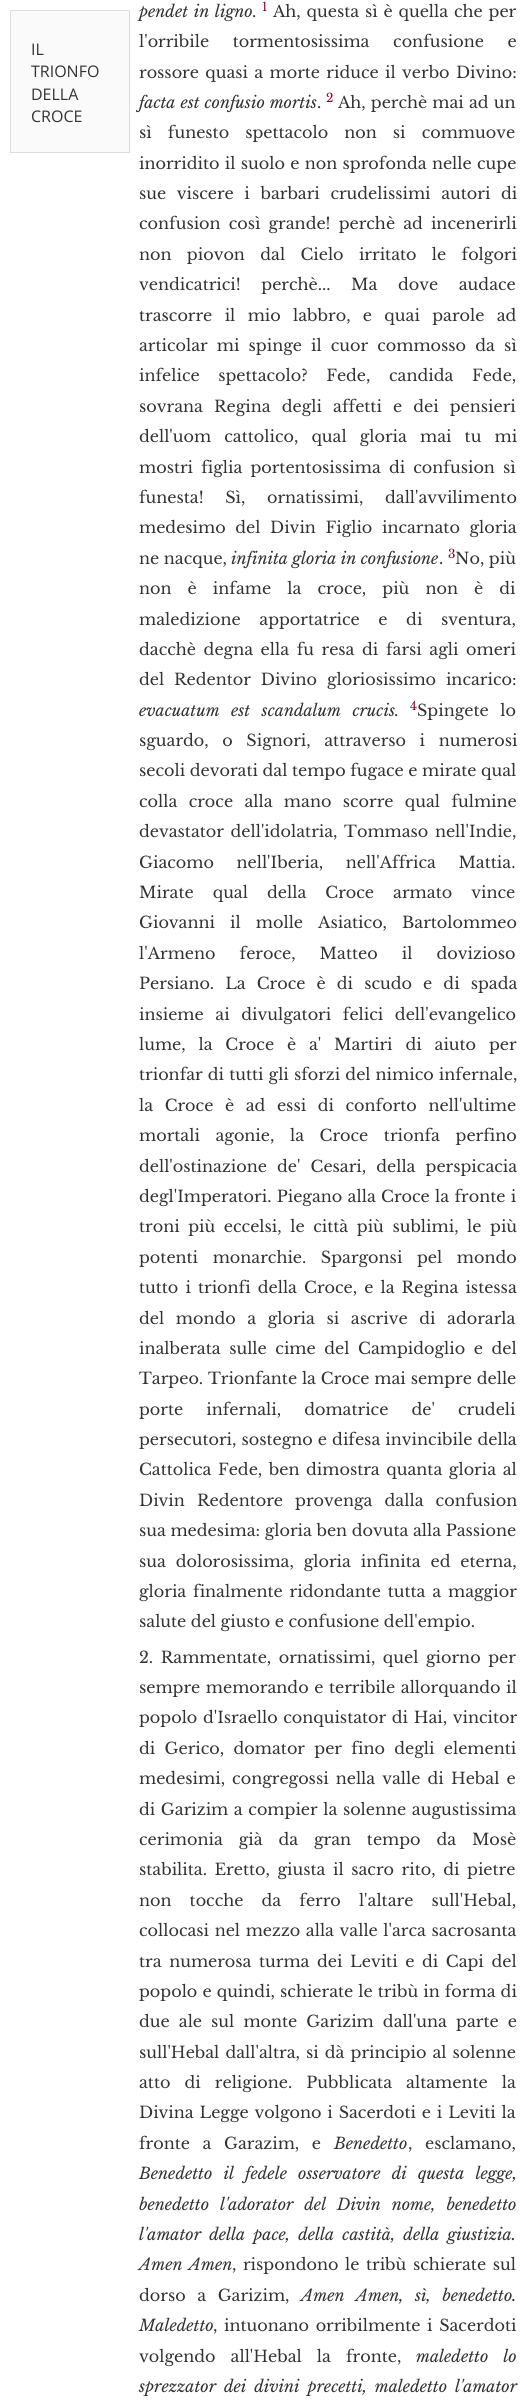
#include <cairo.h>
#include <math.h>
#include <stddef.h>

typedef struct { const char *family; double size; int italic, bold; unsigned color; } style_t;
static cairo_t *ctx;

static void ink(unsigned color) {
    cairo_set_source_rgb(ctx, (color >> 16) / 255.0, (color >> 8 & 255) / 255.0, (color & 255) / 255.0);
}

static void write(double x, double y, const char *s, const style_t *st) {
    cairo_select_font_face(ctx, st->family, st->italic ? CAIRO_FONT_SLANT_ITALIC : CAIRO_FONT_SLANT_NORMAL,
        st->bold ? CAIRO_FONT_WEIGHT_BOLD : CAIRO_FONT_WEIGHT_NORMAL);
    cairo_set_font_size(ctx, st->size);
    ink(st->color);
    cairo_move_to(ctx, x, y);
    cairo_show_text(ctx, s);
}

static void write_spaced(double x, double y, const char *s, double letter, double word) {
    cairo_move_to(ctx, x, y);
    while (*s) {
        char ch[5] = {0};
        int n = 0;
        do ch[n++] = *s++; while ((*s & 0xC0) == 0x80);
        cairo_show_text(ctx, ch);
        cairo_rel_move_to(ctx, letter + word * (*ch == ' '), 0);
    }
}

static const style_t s1 = {"Open Sans", 16, 0, 0, 0x333333};
static const style_t s2 = {"Libre Baskerville", 16, 0, 0, 0x333333};
static const style_t s3 = {"Libre Baskerville", 12, 0, 0, 0x85002b};
static const style_t s4 = {"Libre Baskerville", 16, 1, 0, 0x333333};

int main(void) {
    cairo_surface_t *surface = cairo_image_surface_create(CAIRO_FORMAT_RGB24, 526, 2404);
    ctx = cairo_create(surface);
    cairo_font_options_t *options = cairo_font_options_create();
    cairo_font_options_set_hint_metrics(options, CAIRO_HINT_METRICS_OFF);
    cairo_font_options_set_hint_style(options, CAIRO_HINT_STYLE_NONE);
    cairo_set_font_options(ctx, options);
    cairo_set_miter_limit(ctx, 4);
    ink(0xffffff);
    cairo_paint(ctx);
    ink(0xfafafa);
    cairo_rectangle(ctx, 10.5, 10.5, 119, 142);
    cairo_fill_preserve(ctx);
    ink(0xdedede);
    cairo_set_line_width(ctx, 1);
    cairo_stroke(ctx);
    write(31, 55, "IL", &s1);
    write(31, 77, "TRIONFO", &s1);
    write(31, 100, "DELLA", &s1);
    write(31, 122, "CROCE", &s1);
    cairo_select_font_face(ctx, "Libre Baskerville", CAIRO_FONT_SLANT_ITALIC, CAIRO_FONT_WEIGHT_NORMAL);
    write_spaced(139, 17, "pendet in ligno", 0, 1.25);
    write(252, 17, ".", &s2);
    write(262, 11, "1", &s3);
    cairo_set_font_size(ctx, 16);
    ink(0x333333);
    write_spaced(273, 17, "Ah, questa sì è quella che per", 0, 1.25);
    write_spaced(139, 47, "l'orribile tormentosissima confusione e", 0, 19);
    write_spaced(139, 78, "rossore quasi a morte riduce il verbo Divino:", 0, 1.75);
    cairo_select_font_face(ctx, "Libre Baskerville", CAIRO_FONT_SLANT_ITALIC, CAIRO_FONT_WEIGHT_NORMAL);
    write_spaced(139, 108, "facta est confusio mortis", 0, 0.5);
    write(317, 108, ".", &s2);
    write(326, 102, "2", &s3);
    cairo_set_font_size(ctx, 16);
    ink(0x333333);
    write_spaced(338, 108, "Ah, perchè mai ad un", 0, 0.5);
    write_spaced(139, 138, "sì funesto spettacolo non si commuove", 0, 11.5);
    write_spaced(139, 169, "inorridito il suolo e non sprofonda nelle cupe", 0, 0.75);
    write_spaced(139, 199, "sue viscere i barbari crudelissimi autori di", 0, 6);
    write_spaced(139, 229, "confusion così grande! perchè ad incenerirli", 0, 3.5);
    write_spaced(139, 260, "non piovon dal Cielo irritato le folgori", 0, 10.75);
    write_spaced(139, 290, "vendicatrici! perchè... Ma dove audace", 0, 16);
    write_spaced(139, 321, "trascorre il mio labbro, e quai parole ad", 0, 7.75);
    write_spaced(139, 351, "articolar mi spinge il cuor commosso da sì", 0, 4.5);
    write_spaced(139, 381, "infelice spettacolo? Fede, candida Fede,", 0, 14);
    write_spaced(139, 412, "sovrana Regina degli affetti e dei pensieri", 0, 6.5);
    write_spaced(139, 442, "dell'uom cattolico, qual gloria mai tu mi", 0, 8.5);
    write_spaced(139, 473, "mostri figlia portentosissima di confusion sì", 0, 3.5);
    write_spaced(139, 503, "funesta! Sì, ornatissimi, dall'avvilimento", 0, 17);
    write_spaced(139, 533, "medesimo del Divin Figlio incarnato gloria", 0, 5);
    write(139, 564, "ne nacque,", &s2);
    write(231, 564, "infinita gloria in confusione", &s4);
    write(439, 564, ".", &s2);
    write(448, 558, "3", &s3);
    write(455, 564, "No, più", &s2);
    write_spaced(139, 594, "non è infame la croce, più non è di", 0, 11.5);
    write_spaced(139, 625, "maledizione apportatrice e di sventura,", 0, 14);
    write_spaced(139, 655, "dacchè degna ella fu resa di farsi agli omeri", 0, 3);
    write_spaced(139, 685, "del Redentor Divino gloriosissimo incarico:", 0, 5.25);
    cairo_select_font_face(ctx, "Libre Baskerville", CAIRO_FONT_SLANT_ITALIC, CAIRO_FONT_WEIGHT_NORMAL);
    write_spaced(139, 716, "evacuatum est scandalum crucis", 0, 7);
    write(394, 716, ".", &s2);
    write(410, 710, "4", &s3);
    cairo_set_font_size(ctx, 16);
    ink(0x333333);
    write_spaced(417, 716, "Spingete lo", 0, 7);
    write_spaced(139, 746, "sguardo, o Signori, attraverso i numerosi", 0, 9);
    write(139, 776, "secoli devorati dal tempo fugace e mirate qual", &s2);
    write_spaced(139, 807, "colla croce alla mano scorre qual fulmine", 0, 6.75);
    write_spaced(139, 837, "devastator dell'idolatria, Tommaso nell'Indie,", 0, 2);
    write_spaced(139, 868, "Giacomo nell'Iberia, nell'Affrica Mattia.", 0, 18);
    write_spaced(139, 898, "Mirate qual della Croce armato vince", 0, 14.5);
    write_spaced(139, 928, "Giovanni il molle Asiatico, Bartolommeo", 0, 10.5);
    write_spaced(139, 959, "l'Armeno feroce, Matteo il dovizioso", 0, 19.5);
    write_spaced(139, 989, "Persiano. La Croce è di scudo e di spada", 0, 6.5);
    write_spaced(139, 1020, "insieme ai divulgatori felici dell'evangelico", 0, 7);
    write_spaced(139, 1050, "lume, la Croce è a' Martiri di aiuto per", 0, 8.25);
    write_spaced(139, 1080, "trionfar di tutti gli sforzi del nimico infernale,", 0, 0.5);
    write_spaced(139, 1111, "la Croce è ad essi di conforto nell'ultime", 0, 7);
    write_spaced(139, 1141, "mortali agonie, la Croce trionfa perfino", 0, 11);
    write_spaced(139, 1172, "dell'ostinazione de' Cesari, della perspicacia", 0, 5.5);
    write_spaced(139, 1202, "degl'Imperatori. Piegano alla Croce la fronte i", 0, 0.75);
    write_spaced(139, 1232, "troni più eccelsi, le città più sublimi, le più", 0, 4);
    write_spaced(139, 1263, "potenti monarchie. Spargonsi pel mondo", 0, 10);
    write_spaced(139, 1293, "tutto i trionfi della Croce, e la Regina istessa", 0, 2.5);
    write_spaced(139, 1324, "del mondo a gloria si ascrive di adorarla", 0, 7);
    write_spaced(139, 1354, "inalberata sulle cime del Campidoglio e del", 0, 4);
    write_spaced(139, 1384, "Tarpeo. Trionfante la Croce mai sempre delle", 0, 0.25);
    write_spaced(139, 1415, "porte infernali, domatrice de' crudeli", 0, 18.5);
    write_spaced(139, 1445, "persecutori, sostegno e difesa invincibile della", 0, 0.5);
    write_spaced(139, 1475, "Cattolica Fede, ben dimostra quanta gloria al", 0, 2);
    write_spaced(139, 1506, "Divin Redentore provenga dalla confusion", 0, 7.5);
    write(139, 1536, "sua medesima: gloria ben dovuta alla Passione", &s2);
    write_spaced(139, 1567, "sua dolorosissima, gloria infinita ed eterna,", 0, 5.25);
    write_spaced(139, 1597, "gloria finalmente ridondante tutta a maggior", 0, 2.25);
    write(139, 1627, "salute del giusto e confusione dell'empio.", &s2);
    write_spaced(139, 1663, "2. Rammentate, ornatissimi, quel giorno per", 0, 3);
    write_spaced(139, 1693, "sempre memorando e terribile allorquando il", 0, 1);
    write_spaced(139, 1723, "popolo d'Israello conquistator di Hai, vincitor", 0, 1);
    write_spaced(139, 1754, "di Gerico, domator per fino degli elementi", 0, 4.75);
    write_spaced(139, 1784, "medesimi, congregossi nella valle di Hebal e", 0, 2.5);
    write_spaced(139, 1815, "di Garizim a compier la solenne augustissima", 0, 1);
    write_spaced(139, 1845, "cerimonia già da gran tempo da Mosè", 0, 11.25);
    write_spaced(139, 1875, "stabilita. Eretto, giusta il sacro rito, di pietre", 0, 3);
    write_spaced(139, 1906, "non tocche da ferro l'altare sull'Hebal,", 0, 13.5);
    write_spaced(139, 1936, "collocasi nel mezzo alla valle l'arca sacrosanta", 0, 1);
    write_spaced(139, 1967, "tra numerosa turma dei Leviti e di Capi del", 0, 3);
    write_spaced(139, 1997, "popolo e quindi, schierate le tribù in forma di", 0, 0.5);
    write_spaced(139, 2027, "due ale sul monte Garizim dall'una parte e", 0, 4.5);
    write_spaced(139, 2058, "sull'Hebal dall'altra, si dà principio al solenne", 0, 1.5);
    write_spaced(139, 2088, "atto di religione. Pubblicata altamente la", 0, 9.5);
    write_spaced(139, 2118, "Divina Legge volgono i Sacerdoti e i Leviti la", 0, 1.25);
    write_spaced(139, 2149, "fronte a Garazim, e", 0, 8);
    write(334, 2149, "Benedetto", &s4);
    cairo_select_font_face(ctx, "Libre Baskerville", CAIRO_FONT_SLANT_NORMAL, CAIRO_FONT_WEIGHT_NORMAL);
    write_spaced(408, 2149, ", esclamano,", 0, 8);
    cairo_select_font_face(ctx, "Libre Baskerville", CAIRO_FONT_SLANT_ITALIC, CAIRO_FONT_WEIGHT_NORMAL);
    write_spaced(139, 2179, "Benedetto il fedele osservatore di questa legge,", 0, 6.75);
    write_spaced(139, 2210, "benedetto l'adorator del Divin nome, benedetto", 0, 6.5);
    write_spaced(139, 2240, "l'amator della pace, della castità, della giustizia.", 0, 3.75);
    write_spaced(139, 2270, "Amen Amen", 0, 2);
    cairo_select_font_face(ctx, "Libre Baskerville", CAIRO_FONT_SLANT_NORMAL, CAIRO_FONT_WEIGHT_NORMAL);
    write_spaced(232, 2270, ", rispondono le tribù schierate sul", 0, 2);
    write_spaced(139, 2301, "dorso a Garizim,", 0, 7);
    cairo_select_font_face(ctx, "Libre Baskerville", CAIRO_FONT_SLANT_ITALIC, CAIRO_FONT_WEIGHT_NORMAL);
    write_spaced(301, 2301, "Amen Amen, sì, benedetto.", 0, 7);
    write(139, 2331, "Maledetto", &s4);
    cairo_select_font_face(ctx, "Libre Baskerville", CAIRO_FONT_SLANT_NORMAL, CAIRO_FONT_WEIGHT_NORMAL);
    write_spaced(213, 2331, ", intuonano orribilmente i Sacerdoti", 0, 2);
    write_spaced(139, 2362, "volgendo all'Hebal la fronte,", 0, 10.5);
    cairo_select_font_face(ctx, "Libre Baskerville", CAIRO_FONT_SLANT_ITALIC, CAIRO_FONT_WEIGHT_NORMAL);
    write_spaced(416, 2362, "maledetto lo", 0, 10.5);
    write_spaced(139, 2392, "sprezzator dei divini precetti, maledetto l'amator", 0, 3.5);
    cairo_surface_write_to_png(surface, "screenshot.png");
    cairo_font_options_destroy(options);
    cairo_destroy(ctx);
    cairo_surface_destroy(surface);
    return 0;
}
